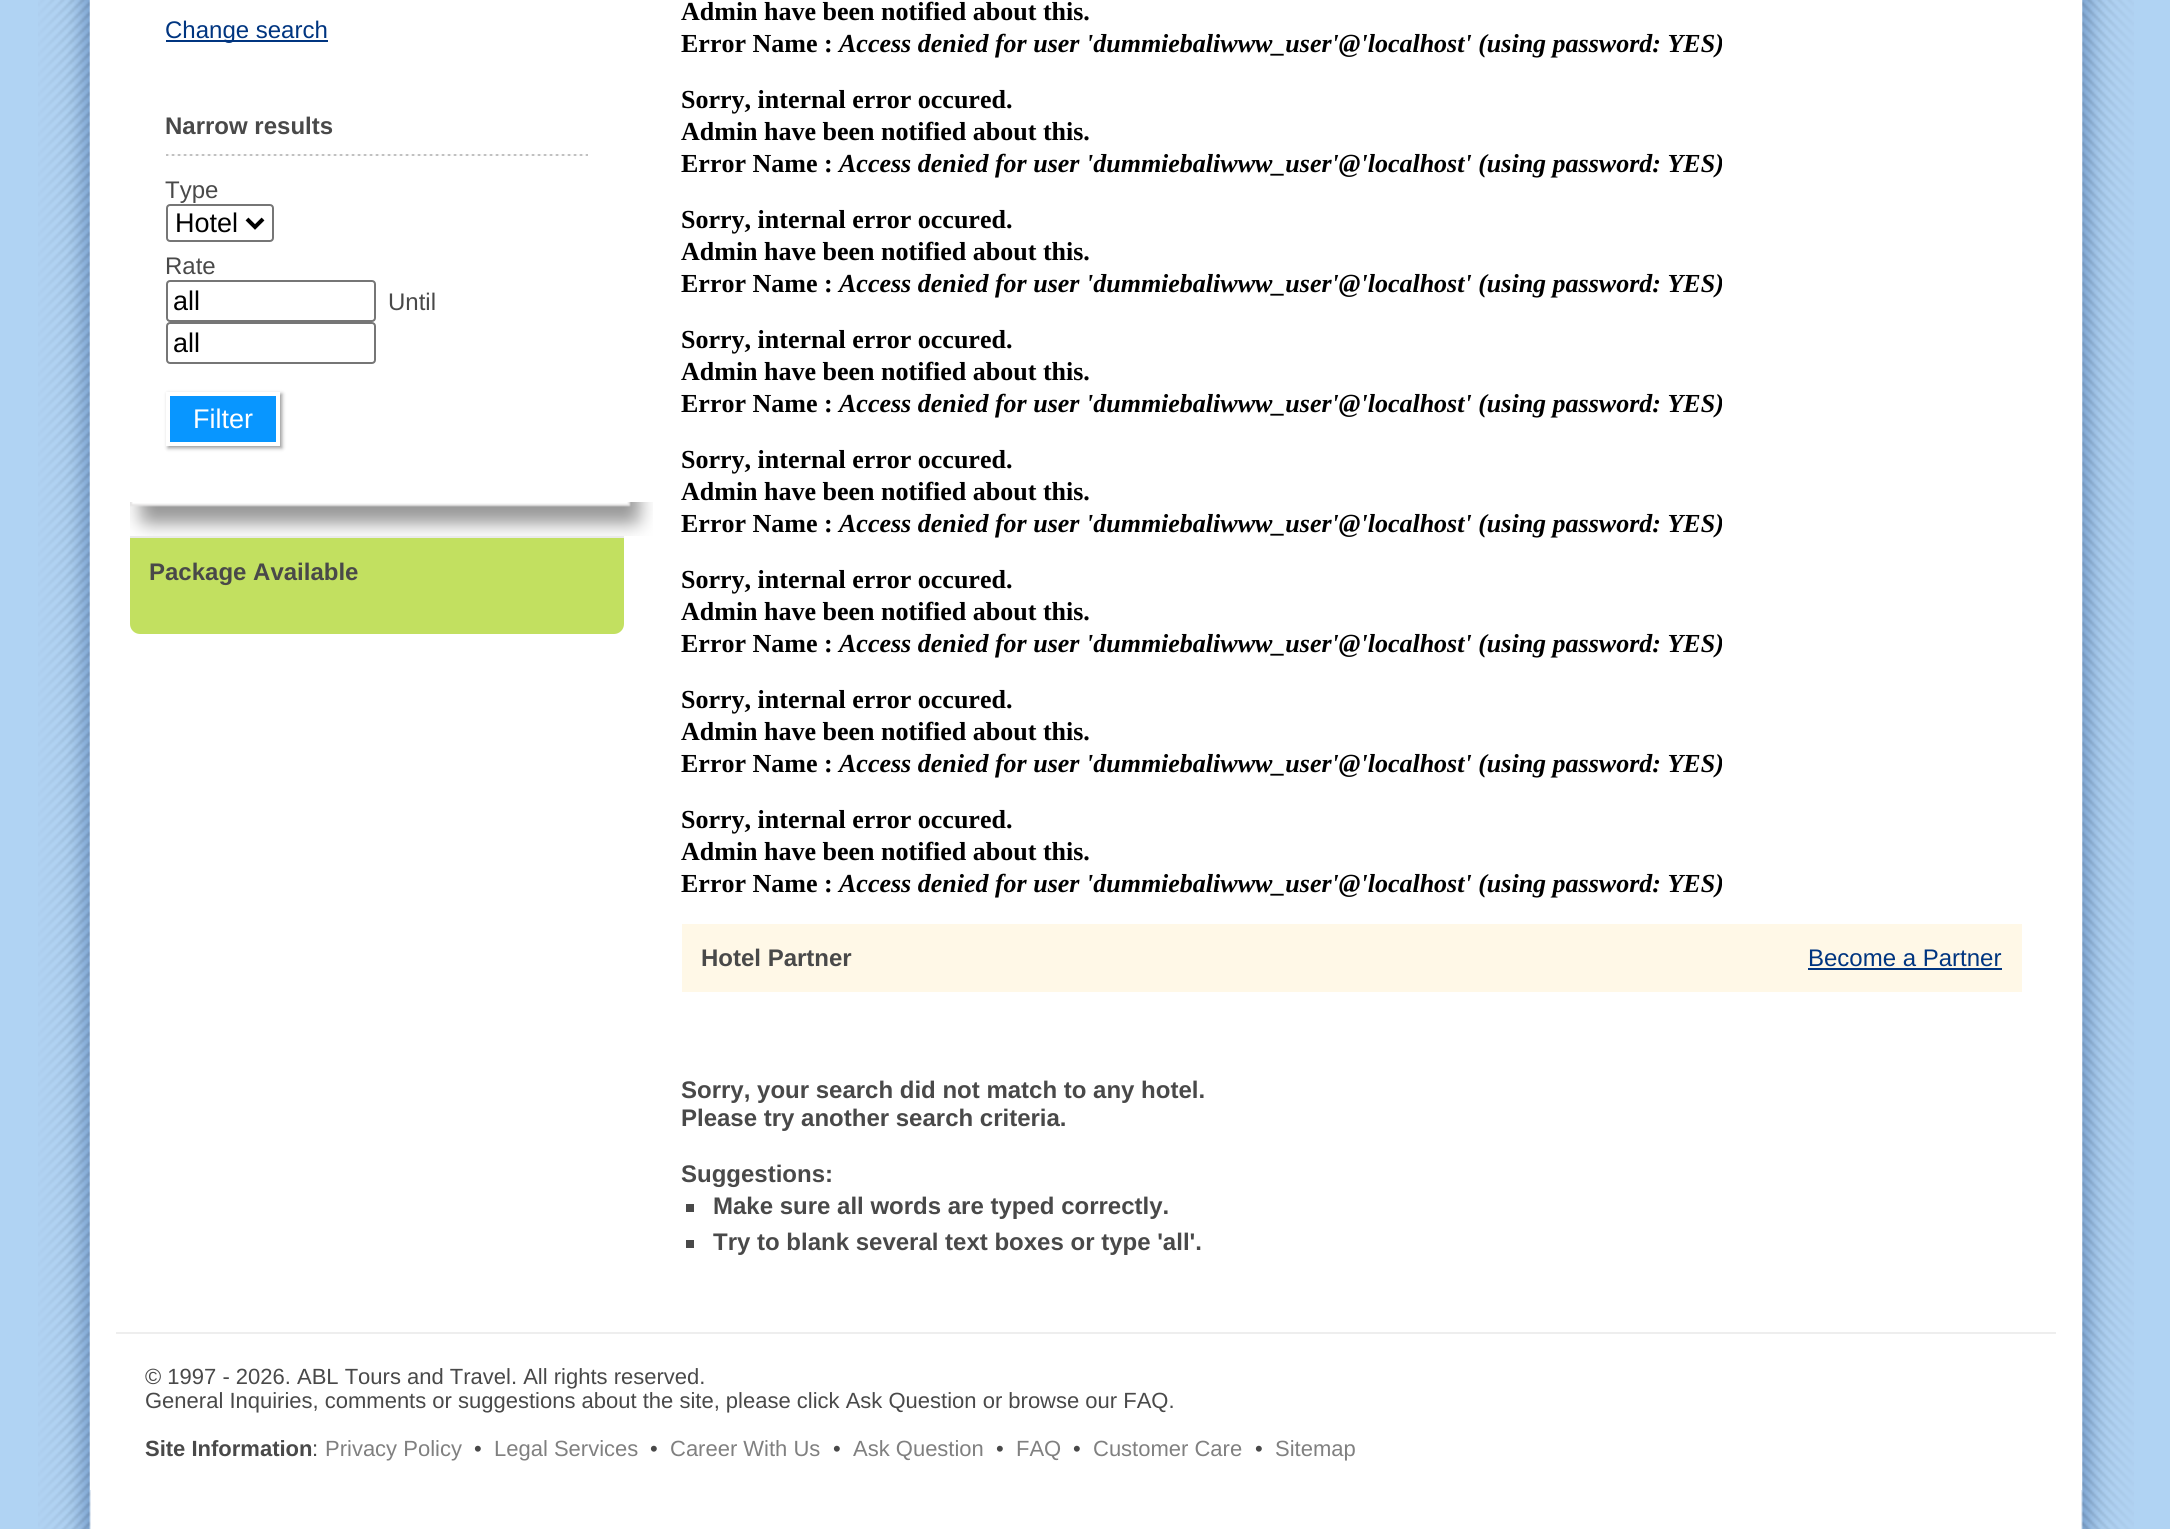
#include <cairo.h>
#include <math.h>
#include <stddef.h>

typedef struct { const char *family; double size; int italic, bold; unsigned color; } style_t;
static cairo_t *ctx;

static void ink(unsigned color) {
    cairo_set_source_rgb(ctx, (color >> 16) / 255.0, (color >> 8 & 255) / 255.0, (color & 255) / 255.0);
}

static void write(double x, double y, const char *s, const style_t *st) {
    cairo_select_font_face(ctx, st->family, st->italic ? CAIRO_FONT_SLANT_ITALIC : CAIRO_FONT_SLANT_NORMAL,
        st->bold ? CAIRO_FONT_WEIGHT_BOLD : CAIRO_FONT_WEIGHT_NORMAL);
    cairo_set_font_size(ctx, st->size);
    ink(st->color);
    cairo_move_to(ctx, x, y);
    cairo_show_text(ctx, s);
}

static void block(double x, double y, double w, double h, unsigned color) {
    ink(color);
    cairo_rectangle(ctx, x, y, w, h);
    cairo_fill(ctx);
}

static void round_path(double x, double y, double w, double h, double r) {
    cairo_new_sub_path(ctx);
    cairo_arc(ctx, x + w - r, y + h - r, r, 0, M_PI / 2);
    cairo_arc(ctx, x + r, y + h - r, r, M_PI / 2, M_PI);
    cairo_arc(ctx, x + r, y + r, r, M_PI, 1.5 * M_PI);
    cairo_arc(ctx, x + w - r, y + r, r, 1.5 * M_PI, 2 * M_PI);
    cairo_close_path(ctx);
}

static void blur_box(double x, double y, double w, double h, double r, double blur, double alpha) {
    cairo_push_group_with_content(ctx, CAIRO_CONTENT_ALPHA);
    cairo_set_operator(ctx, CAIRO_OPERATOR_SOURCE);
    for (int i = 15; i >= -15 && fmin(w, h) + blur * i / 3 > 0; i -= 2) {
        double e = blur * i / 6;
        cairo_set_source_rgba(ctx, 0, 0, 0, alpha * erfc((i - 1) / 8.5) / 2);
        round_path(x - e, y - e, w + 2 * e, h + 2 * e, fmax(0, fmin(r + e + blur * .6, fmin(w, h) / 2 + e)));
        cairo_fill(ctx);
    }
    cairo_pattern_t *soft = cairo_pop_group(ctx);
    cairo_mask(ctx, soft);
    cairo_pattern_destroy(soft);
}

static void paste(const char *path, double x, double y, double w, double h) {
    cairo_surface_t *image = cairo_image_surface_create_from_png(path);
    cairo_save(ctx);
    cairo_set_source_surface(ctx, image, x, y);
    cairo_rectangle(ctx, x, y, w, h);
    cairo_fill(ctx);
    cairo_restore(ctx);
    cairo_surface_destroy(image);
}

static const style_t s1 = {"Liberation Sans", 24, 0, 0, 0x003580};
static const style_t s2 = {"Liberation Sans", 24, 0, 1, 0x494949};
static const style_t s3 = {"Liberation Sans", 24, 0, 0, 0x494949};
static const style_t s4 = {"Liberation Sans", 27, 0, 0, 0x000000};
static const style_t s5 = {"Liberation Sans", 27, 0, 0, 0xffffff};
static const style_t s6 = {"Liberation Serif", 26, 0, 1, 0x000000};
static const style_t s7 = {"Liberation Serif", 26, 1, 1, 0x000000};
static const style_t s8 = {"Liberation Sans", 22, 0, 0, 0x494949};
static const style_t s9 = {"Liberation Sans", 22, 0, 1, 0x494949};
static const style_t s10 = {"Liberation Sans", 22, 0, 0, 0x808080};

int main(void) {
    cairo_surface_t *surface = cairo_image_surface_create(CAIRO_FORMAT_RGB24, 2170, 1529);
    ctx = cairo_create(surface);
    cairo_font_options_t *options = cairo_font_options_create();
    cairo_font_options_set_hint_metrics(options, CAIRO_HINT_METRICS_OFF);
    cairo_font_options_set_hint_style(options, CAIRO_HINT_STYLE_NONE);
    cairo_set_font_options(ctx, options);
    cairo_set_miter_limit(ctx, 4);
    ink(0xb0d3f3);
    cairo_paint(ctx);
    paste("pic1.png", 38, 0, 2096, 1529);
    block(90, 0, 1992, 1490, 0xffffff);
    block(166, 40, 162, 2, 0x003580);
    write(165, 38, "Change search", &s1);
    write(165, 134, "Narrow results", &s2);
    paste("pic2.png", 166, 154, 422, 2);
    write(165, 198, "Type", &s3);
    round_path(167, 205, 106, 36, 3);
    ink(0x767676);
    cairo_stroke(ctx);
    cairo_new_path(ctx);
    cairo_move_to(ctx, 247, 219);
    cairo_line_to(ctx, 255, 227);
    cairo_line_to(ctx, 263, 219);
    ink(0x000000);
    cairo_set_line_width(ctx, 4);
    cairo_stroke(ctx);
    write(175, 232, "Hotel", &s4);
    write(165, 274, "Rate", &s3);
    round_path(167, 281, 208, 40, 3);
    ink(0x767676);
    cairo_set_line_width(ctx, 2);
    cairo_stroke(ctx);
    write(173, 310, "all", &s4);
    write(388, 310, "Until", &s3);
    round_path(167, 323, 208, 40, 3);
    ink(0x767676);
    cairo_stroke(ctx);
    write(173, 352, "all", &s4);
    ink(0x999999);
    blur_box(168, 394, 114, 54, 0, 2, 1);
    ink(0x0896ff);
    cairo_rectangle(ctx, 168, 394, 110, 50);
    cairo_fill_preserve(ctx);
    ink(0xffffff);
    cairo_set_line_width(ctx, 4);
    cairo_stroke(ctx);
    write(193, 428, "Filter", &s5);
    paste("pic3.png", 130, 502, 523, 34);
    ink(0xc2e060);
    cairo_new_path(ctx);
    cairo_move_to(ctx, 130, 536);
    cairo_line_to(ctx, 624, 536);
    cairo_line_to(ctx, 624, 624);
    cairo_curve_to(ctx, 624, 629.5, 619.5, 634, 614, 634);
    cairo_line_to(ctx, 140, 634);
    cairo_curve_to(ctx, 134.5, 634, 130, 629.5, 130, 624);
    cairo_close_path(ctx);
    cairo_fill(ctx);
    block(130, 536, 494, 2, 0xeaeaea);
    write(149, 580, "Package Available", &s2);
    write(681, 20, "Admin have been notified about this.", &s6);
    write(681, 52, "Error Name :", &s6);
    write(839, 52, "Access denied for user 'dummiebaliwww_user'@'localhost' (using password: YES)", &s7);
    write(681, 108, "Sorry, internal error occured.", &s6);
    write(681, 140, "Admin have been notified about this.", &s6);
    write(681, 172, "Error Name :", &s6);
    write(839, 172, "Access denied for user 'dummiebaliwww_user'@'localhost' (using password: YES)", &s7);
    write(681, 228, "Sorry, internal error occured.", &s6);
    write(681, 260, "Admin have been notified about this.", &s6);
    write(681, 292, "Error Name :", &s6);
    write(839, 292, "Access denied for user 'dummiebaliwww_user'@'localhost' (using password: YES)", &s7);
    write(681, 348, "Sorry, internal error occured.", &s6);
    write(681, 380, "Admin have been notified about this.", &s6);
    write(681, 412, "Error Name :", &s6);
    write(839, 412, "Access denied for user 'dummiebaliwww_user'@'localhost' (using password: YES)", &s7);
    write(681, 468, "Sorry, internal error occured.", &s6);
    write(681, 500, "Admin have been notified about this.", &s6);
    write(681, 532, "Error Name :", &s6);
    write(839, 532, "Access denied for user 'dummiebaliwww_user'@'localhost' (using password: YES)", &s7);
    write(681, 588, "Sorry, internal error occured.", &s6);
    write(681, 620, "Admin have been notified about this.", &s6);
    write(681, 652, "Error Name :", &s6);
    write(839, 652, "Access denied for user 'dummiebaliwww_user'@'localhost' (using password: YES)", &s7);
    write(681, 708, "Sorry, internal error occured.", &s6);
    write(681, 740, "Admin have been notified about this.", &s6);
    write(681, 772, "Error Name :", &s6);
    write(839, 772, "Access denied for user 'dummiebaliwww_user'@'localhost' (using password: YES)", &s7);
    write(681, 828, "Sorry, internal error occured.", &s6);
    write(681, 860, "Admin have been notified about this.", &s6);
    write(681, 892, "Error Name :", &s6);
    write(839, 892, "Access denied for user 'dummiebaliwww_user'@'localhost' (using password: YES)", &s7);
    block(682, 924, 1340, 68, 0xfff8e7);
    write(701, 966, "Hotel Partner", &s2);
    write(1808, 966, "Become a Partner", &s1);
    block(1808, 968, 194, 2, 0x003580);
    write(681, 1098, "Sorry, your search did not match to any hotel.", &s2);
    write(681, 1126, "Please try another search criteria.", &s2);
    write(681, 1182, "Suggestions:", &s2);
    block(686, 1204, 8, 8, 0x494949);
    write(713, 1214, "Make sure all words are typed correctly.", &s2);
    block(686, 1240, 8, 8, 0x494949);
    write(713, 1250, "Try to blank several text boxes or type 'all'.", &s2);
    block(116, 1332, 1940, 2, 0xeeeeee);
    write(145, 1384, "© 1997 - 2026. ABL Tours and Travel. All rights reserved.", &s8);
    write(145, 1408, "General Inquiries, comments or suggestions about the site, please click Ask Question or browse our FAQ.", &s8);
    write(145, 1456, "Site Information", &s9);
    write(312, 1456, ":", &s8);
    write(325, 1456, "Privacy Policy", &s10);
    write(474, 1456, "•", &s8);
    write(494, 1456, "Legal Services", &s10);
    write(650, 1456, "•", &s8);
    write(670, 1456, "Career With Us", &s10);
    write(833, 1456, "•", &s8);
    write(853, 1456, "Ask Question", &s10);
    write(996, 1456, "•", &s8);
    write(1016, 1456, "FAQ", &s10);
    write(1073, 1456, "•", &s8);
    write(1093, 1456, "Customer Care", &s10);
    write(1255, 1456, "•", &s8);
    write(1275, 1456, "Sitemap", &s10);
    cairo_surface_write_to_png(surface, "screenshot.png");
    cairo_font_options_destroy(options);
    cairo_destroy(ctx);
    cairo_surface_destroy(surface);
    return 0;
}
